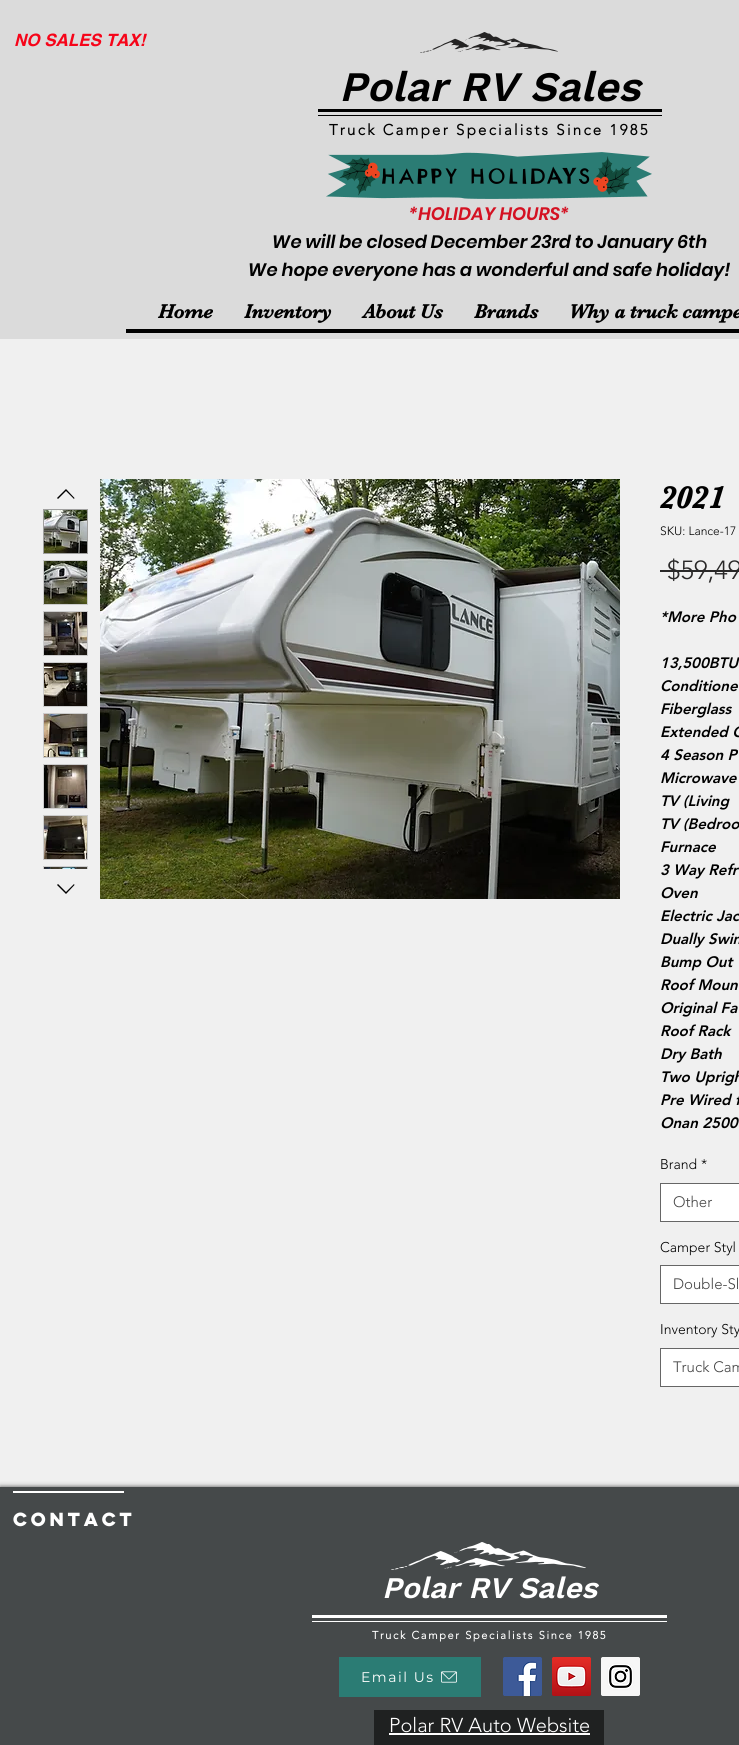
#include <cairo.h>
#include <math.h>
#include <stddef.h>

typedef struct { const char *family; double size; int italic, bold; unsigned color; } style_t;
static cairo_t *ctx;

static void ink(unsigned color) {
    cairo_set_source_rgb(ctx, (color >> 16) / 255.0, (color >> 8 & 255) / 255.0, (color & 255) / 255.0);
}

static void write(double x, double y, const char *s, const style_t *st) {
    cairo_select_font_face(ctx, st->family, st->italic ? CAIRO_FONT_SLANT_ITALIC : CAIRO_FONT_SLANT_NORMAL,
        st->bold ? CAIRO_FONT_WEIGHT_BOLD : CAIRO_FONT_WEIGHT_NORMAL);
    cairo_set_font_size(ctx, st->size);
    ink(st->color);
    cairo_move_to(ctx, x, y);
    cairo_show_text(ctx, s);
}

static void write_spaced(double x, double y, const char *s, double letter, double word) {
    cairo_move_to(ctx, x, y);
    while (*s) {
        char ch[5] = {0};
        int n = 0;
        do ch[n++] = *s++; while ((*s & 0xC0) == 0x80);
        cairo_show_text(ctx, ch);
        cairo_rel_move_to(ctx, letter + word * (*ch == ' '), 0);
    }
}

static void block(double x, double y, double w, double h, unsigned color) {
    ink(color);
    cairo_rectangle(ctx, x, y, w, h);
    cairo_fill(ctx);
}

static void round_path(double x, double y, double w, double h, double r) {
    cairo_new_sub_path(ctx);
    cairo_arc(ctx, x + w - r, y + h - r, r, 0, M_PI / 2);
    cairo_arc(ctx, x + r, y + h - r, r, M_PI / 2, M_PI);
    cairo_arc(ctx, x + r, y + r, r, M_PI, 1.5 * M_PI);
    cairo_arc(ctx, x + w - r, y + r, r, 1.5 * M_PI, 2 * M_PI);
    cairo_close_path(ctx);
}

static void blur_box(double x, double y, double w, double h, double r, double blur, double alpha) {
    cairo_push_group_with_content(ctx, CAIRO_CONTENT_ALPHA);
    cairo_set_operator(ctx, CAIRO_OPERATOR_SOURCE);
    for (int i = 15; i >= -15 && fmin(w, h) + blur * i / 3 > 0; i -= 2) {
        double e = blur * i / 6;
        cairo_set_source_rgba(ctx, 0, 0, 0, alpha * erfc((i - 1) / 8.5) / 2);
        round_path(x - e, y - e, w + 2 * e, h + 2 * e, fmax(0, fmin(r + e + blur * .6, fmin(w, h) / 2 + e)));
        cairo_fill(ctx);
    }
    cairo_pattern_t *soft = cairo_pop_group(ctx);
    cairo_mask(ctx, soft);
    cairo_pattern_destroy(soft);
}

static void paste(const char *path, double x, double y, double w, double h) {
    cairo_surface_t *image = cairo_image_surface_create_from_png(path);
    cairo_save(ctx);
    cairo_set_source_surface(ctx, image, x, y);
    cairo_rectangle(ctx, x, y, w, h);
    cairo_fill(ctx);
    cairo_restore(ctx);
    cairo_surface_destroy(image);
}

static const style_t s1 = {"helvetica", 17, 1, 1, 0xf60419};
static const style_t s2 = {"Work Sans SemiBold", 42, 1, 0, 0x000000};
static const style_t s3 = {"Poppins SemiBold", 18, 1, 0, 0xd41122};
static const style_t s4 = {"Poppins SemiBold", 18, 1, 0, 0x000000};
static const style_t s5 = {"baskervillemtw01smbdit", 20, 0, 1, 0x000000};
static const style_t s6 = {"baskervillemtw01smbdit", 32, 0, 1, 0x000000};
static const style_t s7 = {"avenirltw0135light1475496 Light", 12, 0, 0, 0x000000};
static const style_t s8 = {"avenirltw0135light1475496 Light", 26, 0, 0, 0x292828};
static const style_t s9 = {"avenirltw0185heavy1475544 Black", 15, 1, 0, 0x000000};
static const style_t s10 = {"avenirltw0135light1475496 Light", 14, 0, 0, 0x000000};
static const style_t s11 = {"avenirltw0135light1475496 Light", 15, 0, 0, 0x444444};
static const style_t s12 = {"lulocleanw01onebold", 17, 0, 1, 0xffffff};
static const style_t s13 = {"Work Sans SemiBold", 30, 1, 0, 0xffffff};
static const style_t s14 = {"avenirltw0135light1475496 Light", 20, 0, 0, 0xffffff};

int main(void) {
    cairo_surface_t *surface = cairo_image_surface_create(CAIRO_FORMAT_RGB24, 739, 1745);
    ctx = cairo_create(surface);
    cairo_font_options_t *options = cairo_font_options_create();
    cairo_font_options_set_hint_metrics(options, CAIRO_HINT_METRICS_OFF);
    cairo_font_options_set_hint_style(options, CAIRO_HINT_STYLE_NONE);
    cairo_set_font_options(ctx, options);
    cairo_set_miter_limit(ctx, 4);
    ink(0xf0f0f0);
    cairo_paint(ctx);
    block(0, 0, 739, 339, 0xdbdbdb);
    write(14, 46, "NO SALES TAX!", &s1);
    paste("pic1.png", 420, 32, 138, 21);
    write(339, 101, "Polar RV Sales", &s2);
    block(318, 109, 344, 3, 0x000000);
    block(318, 115, 344, 1, 0x000000);
    cairo_select_font_face(ctx, "avenirltw0135light1475496", CAIRO_FONT_SLANT_NORMAL, CAIRO_FONT_WEIGHT_BOLD);
    cairo_set_font_size(ctx, 15);
    write_spaced(329, 135, "Truck Camper Specialists Since 1985", 2.25, 0);
    paste("pic2.png", 326, 152, 326, 47);
    paste("pic3.png", 339, 157, 41, 39);
    paste("pic4.png", 593, 156, 39, 39);
    write(409, 220, "*HOLIDAY HOURS*", &s3);
    write(272, 248, "We will be closed December 23rd to January 6th", &s4);
    write(248, 276, "We hope everyone has a wonderful and safe holiday!", &s4);
    block(126, 329, 613, 4, 0x000000);
    write(158, 318, "Home", &s5);
    write(244, 318, "Inventory", &s5);
    write(363, 318, "About Us", &s5);
    write(474, 318, "Brands", &s5);
    write(569, 318, "Why a truck campe", &s5);
    cairo_set_fill_rule(ctx, CAIRO_FILL_RULE_EVEN_ODD);
    cairo_new_path(ctx);
    cairo_move_to(ctx, 66, 489);
    cairo_line_to(ctx, 74.5, 498);
    cairo_line_to(ctx, 74, 499);
    cairo_line_to(ctx, 66, 491);
    cairo_line_to(ctx, 58, 499);
    cairo_line_to(ctx, 57, 498);
    cairo_close_path(ctx);
    cairo_fill(ctx);
    cairo_rectangle(ctx, 43.5, 509.5, 44, 44);
    ink(0xa0a09f);
    cairo_set_line_width(ctx, 1);
    cairo_stroke(ctx);
    paste("pic5.png", 44, 510, 43, 43);
    block(43, 560, 45, 45, 0xcccccc);
    paste("pic6.png", 44, 561, 43, 43);
    block(43, 611, 45, 45, 0xcccccc);
    paste("pic7.png", 44, 612, 43, 43);
    block(43, 662, 45, 45, 0xcccccc);
    paste("pic8.png", 44, 663, 43, 43);
    block(43, 713, 45, 45, 0xcccccc);
    paste("pic9.png", 44, 714, 43, 43);
    block(43, 764, 45, 45, 0xcccccc);
    paste("pic10.png", 44, 765, 43, 43);
    block(43, 815, 45, 45, 0xcccccc);
    paste("pic11.png", 44, 816, 43, 43);
    block(43, 866, 45, 3, 0xcccccc);
    paste("pic12.png", 44, 867, 43, 2);
    ink(0x000000);
    cairo_new_path(ctx);
    cairo_move_to(ctx, 74, 884);
    cairo_line_to(ctx, 74.5, 885);
    cairo_line_to(ctx, 66, 894);
    cairo_line_to(ctx, 57, 885);
    cairo_line_to(ctx, 58, 884);
    cairo_line_to(ctx, 66, 892);
    cairo_close_path(ctx);
    cairo_fill(ctx);
    paste("pic13.png", 100, 479, 520, 420);
    write(660, 508, "2021", &s6);
    write(660, 535, "SKU: Lance-17", &s7);
    write(667, 579, "$59,49", &s8);
    block(660, 570, 79, 2, 0x292828);
    write(660, 622, "*More Pho", &s9);
    write(660, 668, "13,500BTU", &s9);
    write(660, 691, "Conditione", &s9);
    write(660, 714, "Fiberglass", &s9);
    write(660, 737, "Extended C", &s9);
    write(660, 760, "4 Season P", &s9);
    write(660, 783, "Microwave", &s9);
    write(660, 806, "TV (Living", &s9);
    write(660, 829, "TV (Bedroo", &s9);
    write(660, 852, "Furnace", &s9);
    write(660, 875, "3 Way Refr", &s9);
    write(660, 898, "Oven", &s9);
    write(660, 921, "Electric Jac", &s9);
    write(660, 944, "Dually Swin", &s9);
    write(660, 967, "Bump Out", &s9);
    write(660, 990, "Roof Moun", &s9);
    write(660, 1013, "Original Fa", &s9);
    write(660, 1036, "Roof Rack", &s9);
    write(660, 1059, "Dry Bath", &s9);
    write(660, 1082, "Two Uprigh", &s9);
    write(660, 1105, "Pre Wired f", &s9);
    write(660, 1128, "Onan 2500", &s9);
    write(660, 1169, "Brand", &s10);
    write(701, 1169, "*", &s10);
    ink(0xffffff);
    cairo_rectangle(ctx, 660.5, 1183.5, 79, 38);
    cairo_fill_preserve(ctx);
    ink(0x666666);
    cairo_stroke(ctx);
    write(673, 1207, "Other", &s11);
    write(660, 1252, "Camper Styl", &s10);
    ink(0xffffff);
    cairo_rectangle(ctx, 660.5, 1265.5, 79, 38);
    cairo_fill_preserve(ctx);
    ink(0x666666);
    cairo_stroke(ctx);
    write(673, 1289, "Double-Sl", &s11);
    write(660, 1334, "Inventory Sty", &s10);
    ink(0xffffff);
    cairo_rectangle(ctx, 660.5, 1348.5, 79, 38);
    cairo_fill_preserve(ctx);
    ink(0x666666);
    cairo_stroke(ctx);
    write(673, 1372, "Truck Cam", &s11);
    ink(0x000000);
    blur_box(0, 1487, 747, 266, 0, 2.5, 0.7);
    block(0, 1487, 739, 258, 0x45494a);
    block(13, 1491, 111, 2, 0xffffff);
    write(13, 1526, "Contact", &s12);
    paste("pic14.png", 391, 1542, 195, 28);
    write(382, 1598, "Polar RV Sales", &s13);
    block(312, 1615, 355, 3, 0xffffff);
    block(312, 1621, 355, 1, 0xffffff);
    cairo_select_font_face(ctx, "avenirltw0135light1475496", CAIRO_FONT_SLANT_NORMAL, CAIRO_FONT_WEIGHT_BOLD);
    cairo_set_font_size(ctx, 11);
    write_spaced(372, 1639, "Truck Camper Specialists Since 1985", 1.65, 0);
    block(339, 1657, 142, 40, 0x2b7c74);
    cairo_select_font_face(ctx, "Montserrat", CAIRO_FONT_SLANT_NORMAL, CAIRO_FONT_WEIGHT_NORMAL);
    cairo_set_font_size(ctx, 14);
    ink(0xffffff);
    write_spaced(361, 1682, "Email Us", 1.5, 0);
    paste("pic15.png", 441, 1671, 16, 12);
    paste("pic16.png", 503, 1657, 39, 39);
    paste("pic17.png", 552, 1657, 39, 39);
    paste("pic18.png", 601, 1657, 39, 39);
    block(374, 1710, 230, 35, 0x1f2121);
    write(389, 1732, "Polar RV Auto Website", &s14);
    block(389, 1733, 201, 2, 0xffffff);
    cairo_surface_write_to_png(surface, "screenshot.png");
    cairo_font_options_destroy(options);
    cairo_destroy(ctx);
    cairo_surface_destroy(surface);
    return 0;
}
